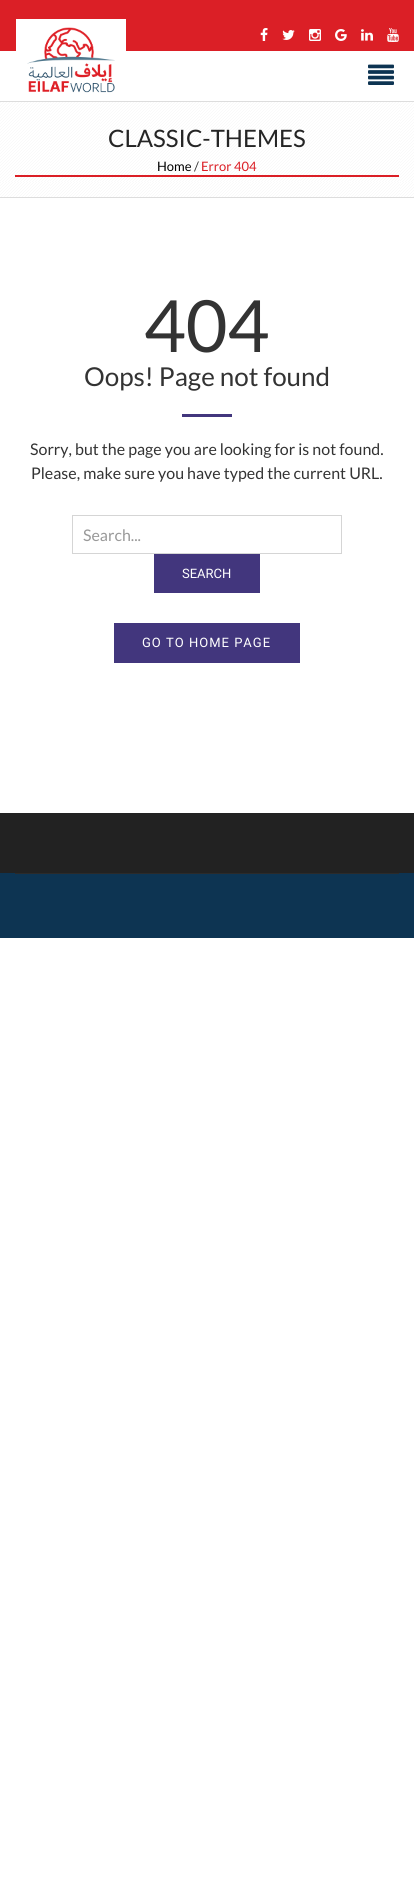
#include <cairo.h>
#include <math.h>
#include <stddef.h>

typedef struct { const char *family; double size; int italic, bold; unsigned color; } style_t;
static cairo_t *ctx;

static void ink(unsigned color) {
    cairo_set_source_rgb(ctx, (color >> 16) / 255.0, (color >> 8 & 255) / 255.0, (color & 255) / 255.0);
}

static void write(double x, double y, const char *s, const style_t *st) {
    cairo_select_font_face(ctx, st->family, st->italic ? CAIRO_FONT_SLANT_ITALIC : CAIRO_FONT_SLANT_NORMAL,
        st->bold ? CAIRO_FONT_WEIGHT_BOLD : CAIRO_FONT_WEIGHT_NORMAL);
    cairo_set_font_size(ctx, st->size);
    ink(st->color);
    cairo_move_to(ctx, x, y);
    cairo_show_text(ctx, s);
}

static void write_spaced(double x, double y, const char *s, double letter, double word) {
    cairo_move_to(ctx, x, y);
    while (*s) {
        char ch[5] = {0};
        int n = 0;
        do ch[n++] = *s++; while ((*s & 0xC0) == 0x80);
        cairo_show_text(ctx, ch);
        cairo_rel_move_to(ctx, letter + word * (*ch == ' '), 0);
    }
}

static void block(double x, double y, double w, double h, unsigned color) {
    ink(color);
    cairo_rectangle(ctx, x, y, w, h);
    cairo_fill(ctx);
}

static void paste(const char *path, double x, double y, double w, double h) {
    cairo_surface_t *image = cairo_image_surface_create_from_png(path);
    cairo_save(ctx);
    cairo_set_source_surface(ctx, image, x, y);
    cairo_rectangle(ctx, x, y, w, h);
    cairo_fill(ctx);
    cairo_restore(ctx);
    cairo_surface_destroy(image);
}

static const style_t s1 = {"Lato", 24, 0, 0, 0x252525};
static const style_t s2 = {"Lato", 13, 0, 0, 0x000000};
static const style_t s3 = {"Lato", 13, 0, 0, 0x333333};
static const style_t s4 = {"Lato", 13, 0, 0, 0xdb1f26};
static const style_t s5 = {"Lato", 72, 0, 0, 0x333333};
static const style_t s6 = {"Lato", 26, 0, 0, 0x333333};
static const style_t s7 = {"Lato", 16, 0, 0, 0x333333};
static const style_t s8 = {"Lato", 16, 0, 0, 0x999999};
static const style_t s9 = {"Roboto", 13, 0, 0, 0xffffff};

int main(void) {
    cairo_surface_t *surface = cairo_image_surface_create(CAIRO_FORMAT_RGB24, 414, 1886);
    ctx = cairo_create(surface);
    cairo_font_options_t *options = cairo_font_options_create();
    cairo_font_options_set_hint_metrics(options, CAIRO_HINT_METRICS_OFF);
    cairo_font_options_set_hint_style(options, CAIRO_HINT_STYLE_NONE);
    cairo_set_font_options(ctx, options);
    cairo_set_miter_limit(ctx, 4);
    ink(0xffffff);
    cairo_paint(ctx);
    block(0, 0, 414, 51, 0xdb1f26);
    paste("pic1.png", 260, 28, 8, 13);
    paste("pic2.png", 282, 30, 13, 10);
    paste("pic3.png", 309, 29, 12, 12);
    paste("pic4.png", 335, 29, 12, 12);
    paste("pic5.png", 361, 29, 12, 12);
    paste("pic6.png", 387, 28, 12, 14);
    ink(0xffffff);
    cairo_new_path(ctx);
    cairo_move_to(ctx, 16, 19);
    cairo_line_to(ctx, 126, 19);
    cairo_line_to(ctx, 126, 80);
    cairo_curve_to(ctx, 126, 91, 117, 100, 106, 100);
    cairo_line_to(ctx, 36, 100);
    cairo_curve_to(ctx, 25, 100, 16, 91, 16, 80);
    cairo_close_path(ctx);
    cairo_fill(ctx);
    paste("pic7.png", 27, 27, 88, 66);
    paste("pic8.png", 368, 64, 26, 21);
    paste("pic9.png", 0, 102, 414, 95);
    block(0, 101, 414, 1, 0xdddddd);
    block(0, 197, 414, 1, 0xdddddd);
    write(108, 147, "CLASSIC-THEMES", &s1);
    block(15, 175, 384, 2, 0xdb1f26);
    write(157, 171, "Home", &s2);
    write(194, 171, "/", &s3);
    write(201, 171, "Error 404", &s4);
    write(144, 352, "404", &s5);
    write(84, 386, "Oops! Page not found", &s6);
    block(182, 414, 50, 3, 0x42367d);
    write(30, 455, "Sorry, but the page you are looking for is not found.", &s7);
    write(31, 479, "Please, make sure you have typed the current URL.", &s7);
    cairo_rectangle(ctx, 72.5, 515.5, 269, 38);
    ink(0xd5d5d5);
    cairo_set_line_width(ctx, 1);
    cairo_stroke(ctx);
    write(83, 541, "Search...", &s8);
    block(154, 554, 106, 39, 0x42367d);
    write(182, 578, "SEARCH", &s9);
    block(114, 623, 186, 40, 0x42367d);
    ink(0xffffff);
    write_spaced(142, 647, "GO TO HOME PAGE", 1, 0);
    block(0, 813, 414, 60, 0x222222);
    block(0, 873, 414, 65, 0x0d3452);
    block(15, 873, 384, 1, 0x2b2b2b);
    cairo_surface_write_to_png(surface, "screenshot.png");
    cairo_font_options_destroy(options);
    cairo_destroy(ctx);
    cairo_surface_destroy(surface);
    return 0;
}
